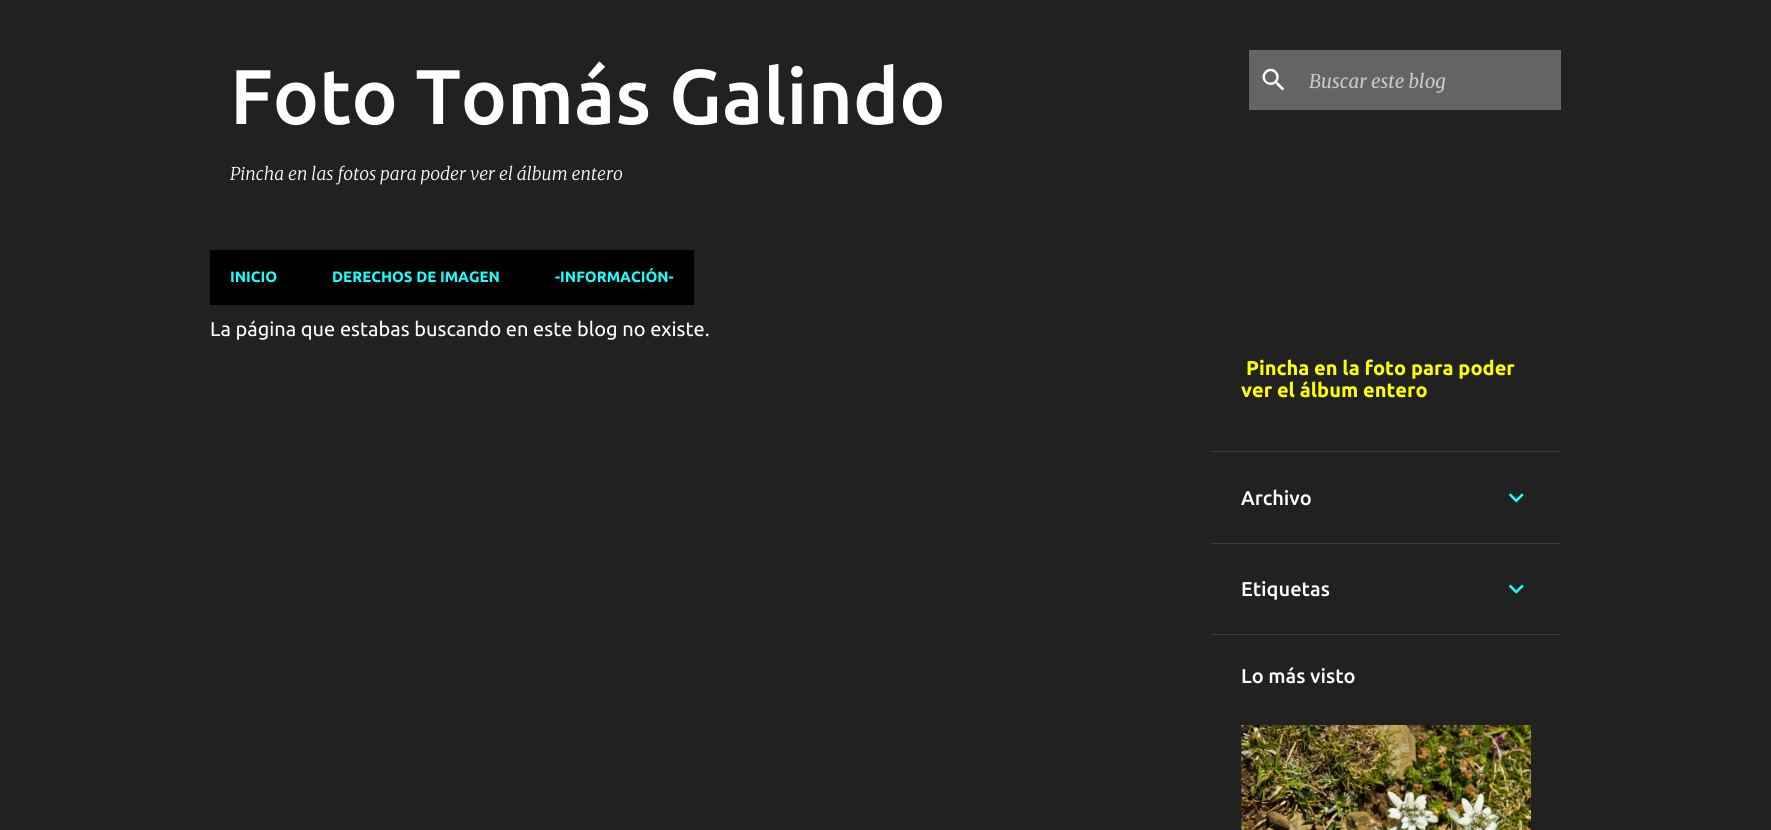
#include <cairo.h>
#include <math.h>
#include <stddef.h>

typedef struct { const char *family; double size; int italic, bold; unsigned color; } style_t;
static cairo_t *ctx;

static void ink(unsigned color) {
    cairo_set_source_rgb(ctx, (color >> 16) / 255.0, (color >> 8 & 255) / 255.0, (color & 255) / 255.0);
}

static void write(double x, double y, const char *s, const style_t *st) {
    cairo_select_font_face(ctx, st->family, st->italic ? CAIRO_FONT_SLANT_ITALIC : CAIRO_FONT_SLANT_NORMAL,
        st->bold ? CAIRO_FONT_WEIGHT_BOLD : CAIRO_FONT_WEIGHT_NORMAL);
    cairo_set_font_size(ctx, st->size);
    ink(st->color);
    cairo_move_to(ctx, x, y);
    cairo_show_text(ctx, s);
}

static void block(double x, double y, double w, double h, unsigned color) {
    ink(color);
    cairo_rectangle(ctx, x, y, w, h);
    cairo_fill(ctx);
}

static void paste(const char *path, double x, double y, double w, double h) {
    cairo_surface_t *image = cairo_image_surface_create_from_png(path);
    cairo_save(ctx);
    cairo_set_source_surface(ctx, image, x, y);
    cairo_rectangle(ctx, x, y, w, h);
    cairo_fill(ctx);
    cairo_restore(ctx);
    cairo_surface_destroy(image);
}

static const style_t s1 = {"Ubuntu Medium", 77.5, 0, 0, 0xffffff};
static const style_t s2 = {"Merriweather Light", 17.5, 1, 0, 0xffffff};
static const style_t s3 = {"Merriweather", 18.75, 1, 0, 0xcacaca};
static const style_t s4 = {"Ubuntu", 15, 0, 1, 0x18ffff};
static const style_t s5 = {"Ubuntu", 20, 0, 0, 0xffffff};
static const style_t s6 = {"Ubuntu", 20, 0, 1, 0xfcff01};
static const style_t s7 = {"Ubuntu Medium", 20, 0, 0, 0xffffff};

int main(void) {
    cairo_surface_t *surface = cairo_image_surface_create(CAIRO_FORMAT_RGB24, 1771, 830);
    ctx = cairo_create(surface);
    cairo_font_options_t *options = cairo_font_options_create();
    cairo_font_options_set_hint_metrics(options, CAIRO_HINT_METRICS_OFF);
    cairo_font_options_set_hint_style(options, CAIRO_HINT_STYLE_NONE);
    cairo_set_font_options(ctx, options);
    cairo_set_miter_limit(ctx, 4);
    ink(0x212121);
    cairo_paint(ctx);
    write(230, 124, "Foto Tomás Galindo", &s1);
    write(230, 180, "Pincha en las fotos para poder ver el álbum entero", &s2);
    block(1249, 50, 312, 60, 0x646464);
    paste("pic1.png", 1262, 68, 23, 23);
    write(1309, 88, "Buscar este blog", &s3);
    block(210, 250, 484, 55, 0x000000);
    write(230, 282, "INICIO", &s4);
    write(332, 282, "DERECHOS DE IMAGEN", &s4);
    write(555, 282, "-INFORMACIÓN-", &s4);
    write(210, 336, "La página que estabas buscando en este blog no existe.", &s5);
    write(1246, 375, "Pincha en la foto para poder", &s6);
    write(1241, 397, "ver el álbum entero", &s6);
    block(1211, 451, 350, 1, 0x3c3c3c);
    write(1241, 505, "Archivo", &s7);
    paste("pic2.png", 1509, 493, 15, 10);
    block(1211, 543, 350, 1, 0x3c3c3c);
    write(1241, 596, "Etiquetas", &s7);
    paste("pic3.png", 1508, 584, 16, 10);
    block(1211, 634, 350, 1, 0x3c3c3c);
    write(1241, 683, "Lo más visto", &s7);
    paste("pic4.png", 1241, 725, 291, 105);
    cairo_surface_write_to_png(surface, "screenshot.png");
    cairo_font_options_destroy(options);
    cairo_destroy(ctx);
    cairo_surface_destroy(surface);
    return 0;
}
